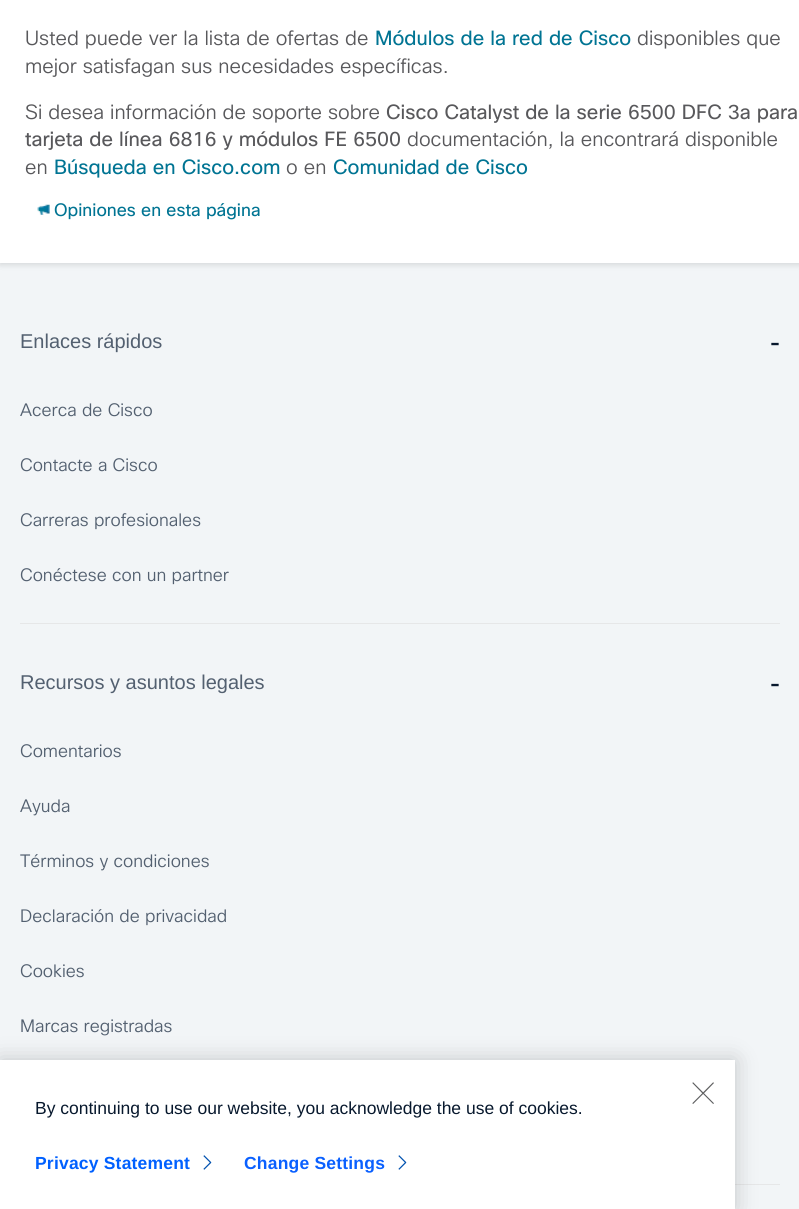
#include <cairo.h>
#include <math.h>
#include <stddef.h>

typedef struct { const char *family; double size; int italic, bold; unsigned color; } style_t;
static cairo_t *ctx;

static void ink(unsigned color) {
    cairo_set_source_rgb(ctx, (color >> 16) / 255.0, (color >> 8 & 255) / 255.0, (color & 255) / 255.0);
}

static void write(double x, double y, const char *s, const style_t *st) {
    cairo_select_font_face(ctx, st->family, st->italic ? CAIRO_FONT_SLANT_ITALIC : CAIRO_FONT_SLANT_NORMAL,
        st->bold ? CAIRO_FONT_WEIGHT_BOLD : CAIRO_FONT_WEIGHT_NORMAL);
    cairo_set_font_size(ctx, st->size);
    ink(st->color);
    cairo_move_to(ctx, x, y);
    cairo_show_text(ctx, s);
}

static void write_spaced(double x, double y, const char *s, double letter, double word) {
    cairo_move_to(ctx, x, y);
    while (*s) {
        char ch[5] = {0};
        int n = 0;
        do ch[n++] = *s++; while ((*s & 0xC0) == 0x80);
        cairo_show_text(ctx, ch);
        cairo_rel_move_to(ctx, letter + word * (*ch == ' '), 0);
    }
}

static void block(double x, double y, double w, double h, unsigned color) {
    ink(color);
    cairo_rectangle(ctx, x, y, w, h);
    cairo_fill(ctx);
}

static void round_path(double x, double y, double w, double h, double r) {
    cairo_new_sub_path(ctx);
    cairo_arc(ctx, x + w - r, y + h - r, r, 0, M_PI / 2);
    cairo_arc(ctx, x + r, y + h - r, r, M_PI / 2, M_PI);
    cairo_arc(ctx, x + r, y + r, r, M_PI, 1.5 * M_PI);
    cairo_arc(ctx, x + w - r, y + r, r, 1.5 * M_PI, 2 * M_PI);
    cairo_close_path(ctx);
}

static void blur_box(double x, double y, double w, double h, double r, double blur, double alpha) {
    cairo_push_group_with_content(ctx, CAIRO_CONTENT_ALPHA);
    cairo_set_operator(ctx, CAIRO_OPERATOR_SOURCE);
    for (int i = 15; i >= -15 && fmin(w, h) + blur * i / 3 > 0; i -= 2) {
        double e = blur * i / 6;
        cairo_set_source_rgba(ctx, 0, 0, 0, alpha * erfc((i - 1) / 8.5) / 2);
        round_path(x - e, y - e, w + 2 * e, h + 2 * e, fmax(0, fmin(r + e + blur * .6, fmin(w, h) / 2 + e)));
        cairo_fill(ctx);
    }
    cairo_pattern_t *soft = cairo_pop_group(ctx);
    cairo_mask(ctx, soft);
    cairo_pattern_destroy(soft);
}

static void paste(const char *path, double x, double y, double w, double h) {
    cairo_surface_t *image = cairo_image_surface_create_from_png(path);
    cairo_save(ctx);
    cairo_set_source_surface(ctx, image, x, y);
    cairo_rectangle(ctx, x, y, w, h);
    cairo_fill(ctx);
    cairo_restore(ctx);
    cairo_surface_destroy(image);
}

static const style_t s1 = {"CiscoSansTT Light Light", 20, 0, 0, 0x58585b};
static const style_t s2 = {"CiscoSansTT", 20, 0, 0, 0x007493};
static const style_t s3 = {"CiscoSansTT", 20, 0, 0, 0x58585b};
static const style_t s4 = {"CiscoSansTT", 17.5, 0, 0, 0x007493};
static const style_t s5 = {"Liberation Sans", 20, 0, 0, 0x536070};
static const style_t s6 = {"Liberation Sans", 30, 0, 0, 0x07182d};
static const style_t s7 = {"CiscoSansTT Light Light", 17.5, 0, 0, 0x536070};
static const style_t s8 = {"Liberation Sans", 17.5, 0, 0, 0x07182d};

int main(void) {
    cairo_surface_t *surface = cairo_image_surface_create(CAIRO_FORMAT_RGB24, 799, 1209);
    ctx = cairo_create(surface);
    cairo_font_options_t *options = cairo_font_options_create();
    cairo_font_options_set_hint_metrics(options, CAIRO_HINT_METRICS_OFF);
    cairo_font_options_set_hint_style(options, CAIRO_HINT_STYLE_NONE);
    cairo_set_font_options(ctx, options);
    cairo_set_miter_limit(ctx, 4);
    ink(0xf2f5f7);
    cairo_paint(ctx);
    ink(0x000000);
    blur_box(0, -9, 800, 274, 0, 3, 0.12);
    block(0, 0, 799, 263, 0xffffff);
    write(25, 45, "Usted puede ver la lista de ofertas de", &s1);
    write(375, 45, "Módulos de la red de Cisco", &s2);
    write(637, 45, "disponibles que", &s1);
    write(25, 73, "mejor satisfagan sus necesidades específicas.", &s1);
    write(25, 119, "Si desea información de soporte sobre", &s1);
    write(386, 119, "Cisco Catalyst de la serie 6500 DFC 3a para", &s3);
    write(25, 146, "tarjeta de línea 6816 y módulos FE 6500", &s3);
    write(407, 146, "documentación, la encontrará disponible", &s1);
    write(25, 174, "en", &s1);
    write(54, 174, "Búsqueda en Cisco.com", &s2);
    write(286, 174, "o en", &s1);
    write(333, 174, "Comunidad de Cisco", &s2);
    paste("pic1.png", 37, 204, 13, 11);
    write(54, 216, "Opiniones en esta página", &s4);
    write(20, 348, "Enlaces rápidos", &s5);
    write(770, 352, "-", &s6);
    write(20, 416, "Acerca de Cisco", &s7);
    write(20, 471, "Contacte a Cisco", &s7);
    write(20, 526, "Carreras profesionales", &s7);
    write(20, 581, "Conéctese con un partner", &s7);
    block(20, 623, 760, 1, 0xe6e7e8);
    write(20, 689, "Recursos y asuntos legales", &s5);
    write(770, 693, "-", &s6);
    write(20, 757, "Comentarios", &s7);
    write(20, 812, "Ayuda", &s7);
    write(20, 867, "Términos y condiciones", &s7);
    write(20, 922, "Declaración de privacidad", &s7);
    write(20, 977, "Cookies", &s7);
    write(20, 1032, "Marcas registradas", &s7);
    block(735, 1184, 45, 1, 0xe6e7e8);
    ink(0x000000);
    blur_box(0, 1060, 735, 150, 0, 11, 0.2);
    block(0, 1060, 735, 149, 0xffffff);
    paste("pic2.png", 692, 1082, 22, 22);
    write(35, 1114, "By continuing to use our website, you acknowledge the use of cookies.", &s8);
    cairo_select_font_face(ctx, "Liberation Sans", CAIRO_FONT_SLANT_NORMAL, CAIRO_FONT_WEIGHT_BOLD);
    ink(0x0060ff);
    write_spaced(35, 1169, "Privacy Statement", 0.2, 0);
    paste("pic3.png", 203, 1155, 9, 15);
    ink(0x0a60ff);
    write_spaced(244, 1169, "Change Settings", 0.2, 0);
    paste("pic3.png", 398, 1155, 9, 15);
    cairo_surface_write_to_png(surface, "screenshot.png");
    cairo_font_options_destroy(options);
    cairo_destroy(ctx);
    cairo_surface_destroy(surface);
    return 0;
}
